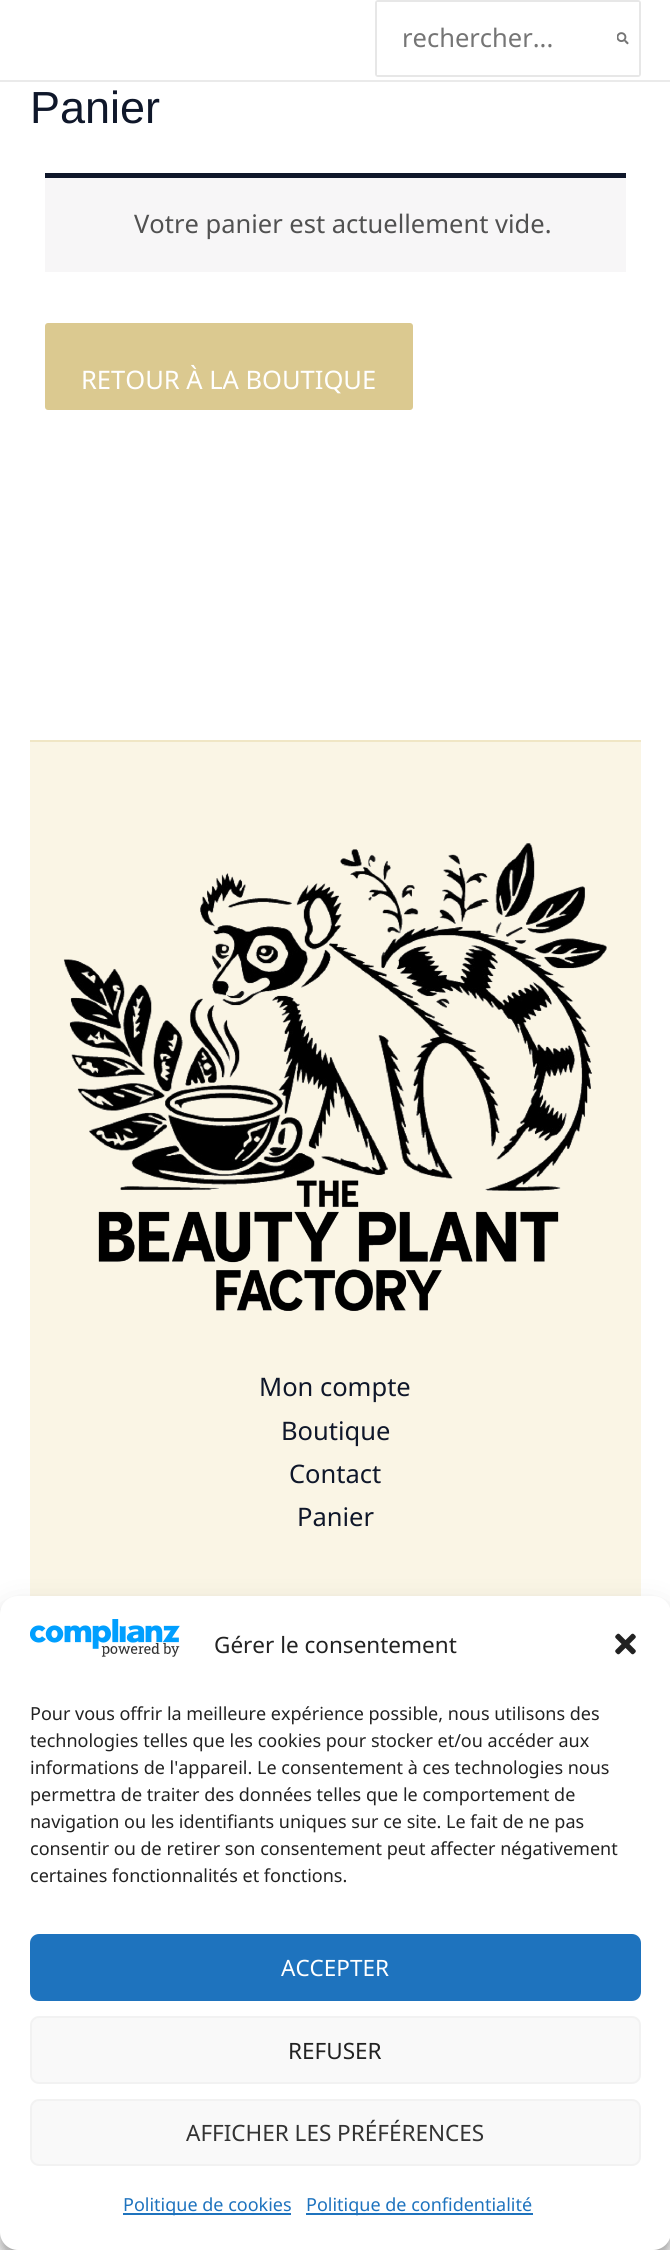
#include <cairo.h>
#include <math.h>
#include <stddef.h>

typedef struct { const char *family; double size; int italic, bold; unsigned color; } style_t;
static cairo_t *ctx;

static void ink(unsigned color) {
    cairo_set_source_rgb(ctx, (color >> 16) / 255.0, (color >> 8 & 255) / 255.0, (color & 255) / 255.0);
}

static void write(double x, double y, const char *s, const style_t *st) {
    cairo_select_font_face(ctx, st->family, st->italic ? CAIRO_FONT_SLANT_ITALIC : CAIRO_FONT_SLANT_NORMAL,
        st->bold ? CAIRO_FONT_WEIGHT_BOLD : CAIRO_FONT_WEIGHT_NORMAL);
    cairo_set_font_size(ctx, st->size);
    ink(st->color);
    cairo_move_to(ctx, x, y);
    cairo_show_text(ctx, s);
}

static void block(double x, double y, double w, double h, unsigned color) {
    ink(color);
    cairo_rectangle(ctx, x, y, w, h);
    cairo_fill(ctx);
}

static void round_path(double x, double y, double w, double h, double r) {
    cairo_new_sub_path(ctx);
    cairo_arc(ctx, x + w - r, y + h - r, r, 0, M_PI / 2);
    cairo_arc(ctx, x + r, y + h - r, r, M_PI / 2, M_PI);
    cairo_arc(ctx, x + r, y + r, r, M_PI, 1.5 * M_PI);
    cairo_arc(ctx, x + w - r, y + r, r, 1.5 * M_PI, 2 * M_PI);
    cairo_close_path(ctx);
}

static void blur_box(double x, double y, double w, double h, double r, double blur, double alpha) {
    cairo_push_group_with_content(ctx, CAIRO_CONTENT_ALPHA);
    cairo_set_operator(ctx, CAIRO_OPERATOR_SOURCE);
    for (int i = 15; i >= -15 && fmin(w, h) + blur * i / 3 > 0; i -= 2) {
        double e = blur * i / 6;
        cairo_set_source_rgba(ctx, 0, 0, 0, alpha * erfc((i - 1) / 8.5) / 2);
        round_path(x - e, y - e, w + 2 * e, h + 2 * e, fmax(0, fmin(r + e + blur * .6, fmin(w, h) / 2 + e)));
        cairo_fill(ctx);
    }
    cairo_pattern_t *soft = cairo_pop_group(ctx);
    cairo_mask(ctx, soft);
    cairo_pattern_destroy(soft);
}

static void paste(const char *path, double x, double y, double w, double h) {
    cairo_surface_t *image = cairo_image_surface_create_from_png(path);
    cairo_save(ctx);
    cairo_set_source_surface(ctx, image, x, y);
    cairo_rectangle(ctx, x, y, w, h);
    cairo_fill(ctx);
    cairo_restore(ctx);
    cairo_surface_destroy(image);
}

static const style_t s1 = {"Noto Sans", 25.5, 0, 0, 0x757575};
static const style_t s2 = {"Liberation Sans", 45, 0, 0, 0x0f172a};
static const style_t s3 = {"Noto Sans", 25.5, 0, 0, 0x515151};
static const style_t s4 = {"Noto Sans", 25.5, 0, 0, 0xffffff};
static const style_t s5 = {"Noto Sans", 25.5, 0, 0, 0x0f172a};
static const style_t s6 = {"Noto Sans", 22.5, 0, 0, 0x222222};
static const style_t s7 = {"Noto Sans", 18, 0, 0, 0x222222};
static const style_t s8 = {"Noto Sans", 22.5, 0, 0, 0xffffff};
static const style_t s9 = {"Noto Sans", 22.5, 0, 0, 0x333333};
static const style_t s10 = {"Noto Sans", 18, 0, 0, 0x1e73be};

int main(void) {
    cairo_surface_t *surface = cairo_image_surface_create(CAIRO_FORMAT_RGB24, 670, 2250);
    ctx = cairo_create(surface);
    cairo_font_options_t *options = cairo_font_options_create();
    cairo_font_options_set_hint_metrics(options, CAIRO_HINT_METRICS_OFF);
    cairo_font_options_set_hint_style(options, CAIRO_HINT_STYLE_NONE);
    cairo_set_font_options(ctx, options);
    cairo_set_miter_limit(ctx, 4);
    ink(0xffffff);
    cairo_paint(ctx);
    block(0, 80, 670, 2, 0xeaeaea);
    round_path(376, 1, 264, 75, 2);
    ink(0xe7e7e7);
    cairo_stroke(ctx);
    block(377, 2, 262, 73, 0xffffff);
    write(402, 47, "rechercher...", &s1);
    paste("pic1.png", 617, 32, 12, 13);
    write(30, 123, "Panier", &s2);
    block(45, 178, 581, 94, 0xf7f6f7);
    block(45, 173, 581, 5, 0x0f172a);
    write(134, 233, "Votre panier est actuellement vide.", &s3);
    ink(0xdbc990);
    round_path(45, 323, 368, 87, 3);
    cairo_fill(ctx);
    write(81, 389, "RETOUR À LA BOUTIQUE", &s4);
    block(30, 742, 611, 854, 0xfaf5e5);
    block(30, 740, 611, 2, 0xf0e6c5);
    paste("pic2.png", 63, 843, 544, 468);
    write(259, 1396, "Mon compte", &s5);
    write(281, 1440, "Boutique", &s5);
    write(289, 1483, "Contact", &s5);
    write(297, 1526, "Panier", &s5);
    ink(0x000000);
    blur_box(0, 1605, 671, 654, 18, 4.5, 0.23);
    blur_box(0, 1611, 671, 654, 18, 15, 0.19);
    ink(0xffffff);
    round_path(0, 1596, 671, 654, 18);
    cairo_fill(ctx);
    paste("pic3.png", 30, 1619, 150, 38);
    write(214, 1653, "Gérer le consentement", &s6);
    paste("pic4.png", 615, 1633, 21, 22);
    write(30, 1720, "Pour vous offrir la meilleure expérience possible, nous utilisons des", &s7);
    write(30, 1747, "technologies telles que les cookies pour stocker et/ou accéder aux", &s7);
    write(30, 1774, "informations de l'appareil. Le consentement à ces technologies nous", &s7);
    write(30, 1801, "permettra de traiter des données telles que le comportement de", &s7);
    write(30, 1828, "navigation ou les identifiants uniques sur ce site. Le fait de ne pas", &s7);
    write(30, 1855, "consentir ou de retirer son consentement peut affecter négativement", &s7);
    write(30, 1882, "certaines fonctionnalités et fonctions.", &s7);
    ink(0x1e73be);
    round_path(31, 1935, 609, 65, 8);
    cairo_fill_preserve(ctx);
    cairo_stroke(ctx);
    write(281, 1976, "ACCEPTER", &s8);
    ink(0xf9f9f9);
    round_path(31, 2017, 609, 66, 8);
    cairo_fill_preserve(ctx);
    ink(0xf2f2f2);
    cairo_stroke(ctx);
    write(288, 2059, "REFUSER", &s6);
    ink(0xf9f9f9);
    round_path(31, 2100, 609, 65, 8);
    cairo_fill_preserve(ctx);
    ink(0xf2f2f2);
    cairo_stroke(ctx);
    write(186, 2141, "AFFICHER LES PRÉFÉRENCES", &s9);
    block(123, 2213, 168, 2, 0x1e73be);
    write(123, 2211, "Politique de cookies", &s10);
    block(306, 2213, 227, 2, 0x1e73be);
    write(306, 2211, "Politique de confidentialité", &s10);
    cairo_surface_write_to_png(surface, "screenshot.png");
    cairo_font_options_destroy(options);
    cairo_destroy(ctx);
    cairo_surface_destroy(surface);
    return 0;
}
